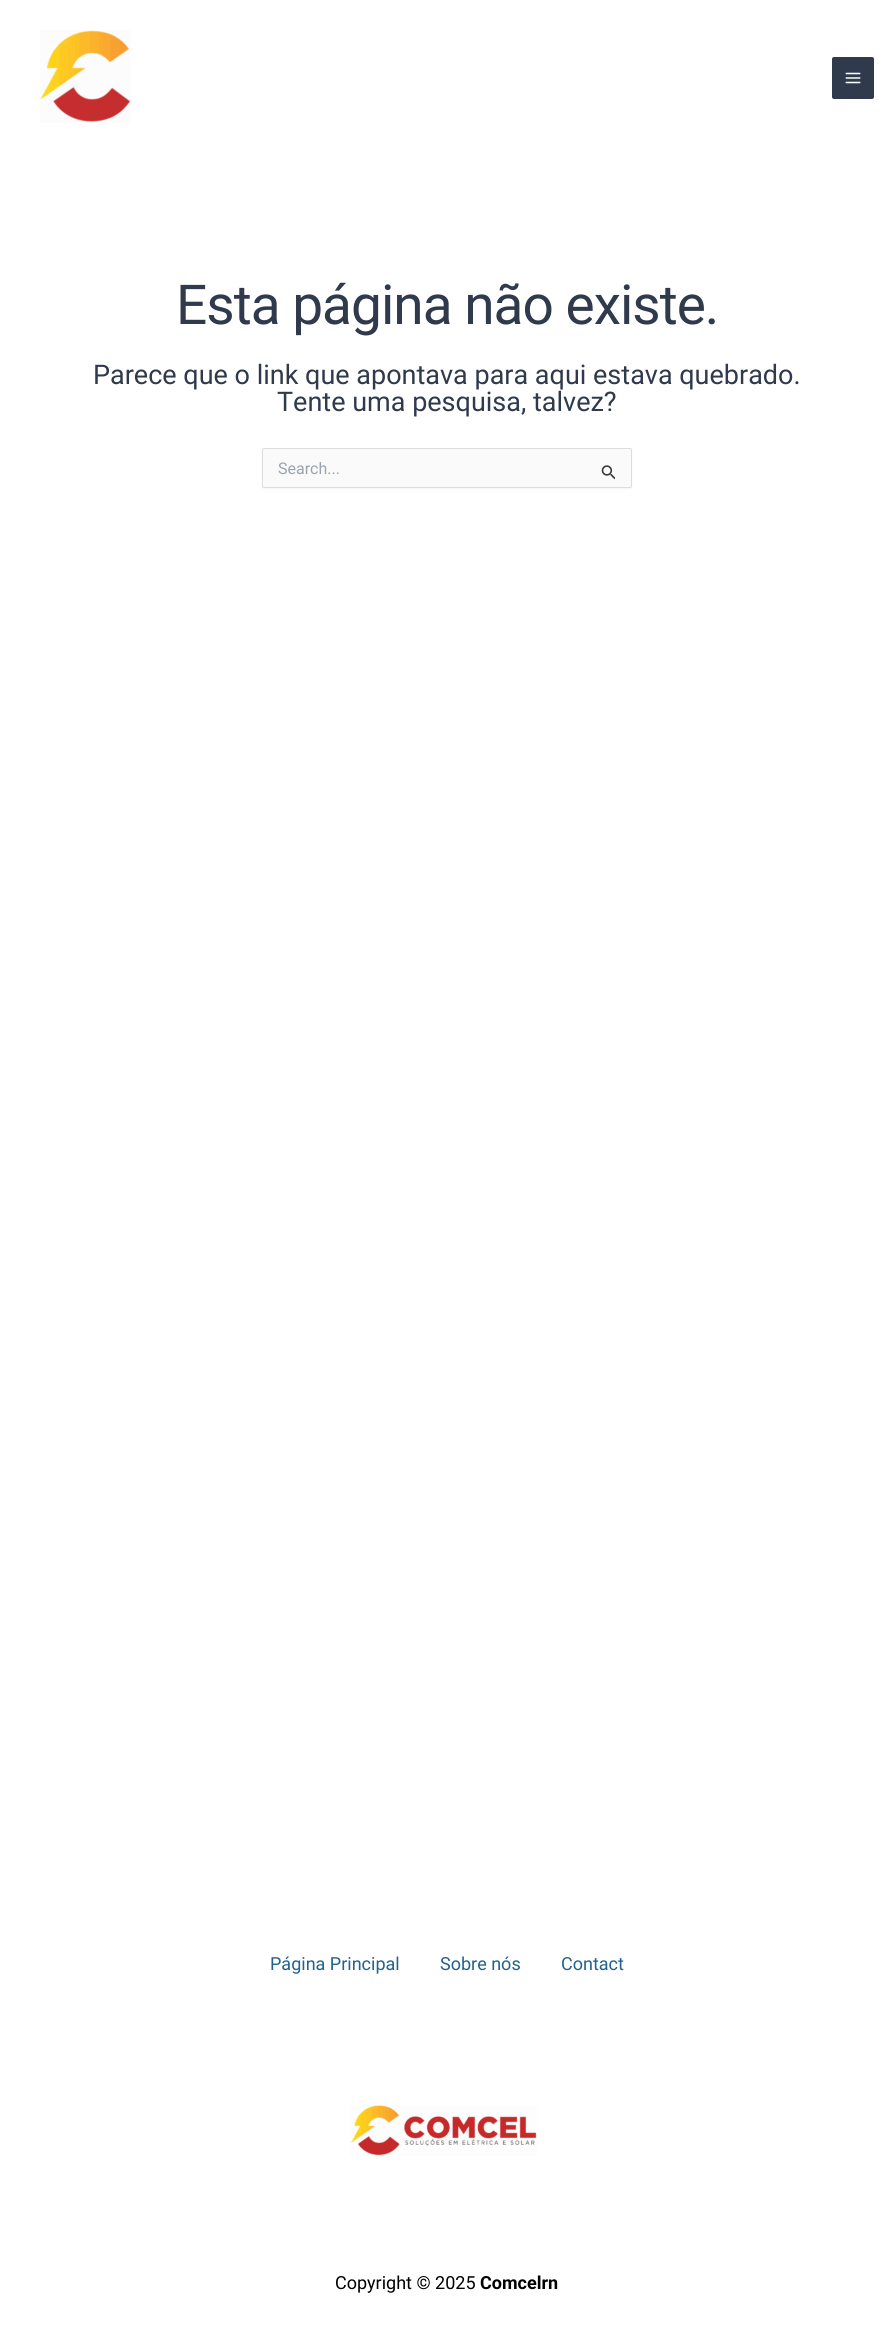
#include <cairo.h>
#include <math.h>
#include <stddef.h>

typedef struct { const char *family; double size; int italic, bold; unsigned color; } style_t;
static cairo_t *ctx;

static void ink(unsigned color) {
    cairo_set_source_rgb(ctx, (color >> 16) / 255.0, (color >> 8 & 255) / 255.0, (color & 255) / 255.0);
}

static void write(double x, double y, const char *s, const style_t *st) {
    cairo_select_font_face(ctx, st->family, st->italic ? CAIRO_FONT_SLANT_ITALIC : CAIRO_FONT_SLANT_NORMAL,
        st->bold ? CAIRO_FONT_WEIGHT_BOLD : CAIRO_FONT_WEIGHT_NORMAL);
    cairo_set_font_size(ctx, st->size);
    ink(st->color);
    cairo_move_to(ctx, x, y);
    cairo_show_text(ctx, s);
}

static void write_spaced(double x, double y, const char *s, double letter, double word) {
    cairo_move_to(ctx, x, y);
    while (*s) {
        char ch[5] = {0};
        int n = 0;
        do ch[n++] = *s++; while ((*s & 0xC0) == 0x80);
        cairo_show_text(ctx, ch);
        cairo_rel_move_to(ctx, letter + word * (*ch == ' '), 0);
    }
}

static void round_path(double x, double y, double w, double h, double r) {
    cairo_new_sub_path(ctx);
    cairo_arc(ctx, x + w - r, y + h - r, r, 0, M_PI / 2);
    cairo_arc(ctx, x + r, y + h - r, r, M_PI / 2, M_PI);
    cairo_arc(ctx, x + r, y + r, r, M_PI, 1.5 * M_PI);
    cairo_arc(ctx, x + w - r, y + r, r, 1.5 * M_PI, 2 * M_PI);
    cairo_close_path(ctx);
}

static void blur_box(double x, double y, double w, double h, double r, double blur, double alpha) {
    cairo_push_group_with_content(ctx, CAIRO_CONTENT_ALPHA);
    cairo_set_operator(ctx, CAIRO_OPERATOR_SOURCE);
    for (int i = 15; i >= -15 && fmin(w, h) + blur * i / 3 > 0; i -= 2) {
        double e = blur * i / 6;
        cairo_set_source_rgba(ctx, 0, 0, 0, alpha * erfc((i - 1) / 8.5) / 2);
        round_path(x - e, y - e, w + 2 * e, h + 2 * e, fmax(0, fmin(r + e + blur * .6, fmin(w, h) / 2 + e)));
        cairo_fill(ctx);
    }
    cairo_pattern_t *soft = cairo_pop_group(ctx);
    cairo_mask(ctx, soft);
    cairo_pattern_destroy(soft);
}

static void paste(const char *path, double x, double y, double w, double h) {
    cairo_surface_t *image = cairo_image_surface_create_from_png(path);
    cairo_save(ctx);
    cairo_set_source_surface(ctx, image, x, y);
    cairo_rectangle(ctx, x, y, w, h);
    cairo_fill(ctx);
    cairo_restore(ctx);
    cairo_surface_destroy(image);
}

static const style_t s1 = {"Roboto", 27, 0, 0, 0x303a4d};
static const style_t s2 = {"Roboto", 16, 0, 0, 0x9ca3af};
static const style_t s3 = {"Roboto", 18, 0, 0, 0x20638c};
static const style_t s4 = {"Roboto", 18, 0, 0, 0x000000};
static const style_t s5 = {"Roboto", 18, 0, 1, 0x000000};

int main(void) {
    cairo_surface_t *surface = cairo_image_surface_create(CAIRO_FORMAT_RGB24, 894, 2348);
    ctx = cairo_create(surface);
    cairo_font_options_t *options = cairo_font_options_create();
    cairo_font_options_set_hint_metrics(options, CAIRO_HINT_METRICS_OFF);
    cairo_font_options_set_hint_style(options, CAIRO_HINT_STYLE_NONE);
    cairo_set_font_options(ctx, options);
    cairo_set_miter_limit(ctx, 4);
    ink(0xffffff);
    cairo_paint(ctx);
    paste("pic1.png", 40, 30, 91, 93);
    ink(0x303a4d);
    round_path(832, 57, 42, 42, 2);
    cairo_fill(ctx);
    paste("pic2.png", 845, 72, 16, 12);
    cairo_select_font_face(ctx, "Roboto", CAIRO_FONT_SLANT_NORMAL, CAIRO_FONT_WEIGHT_NORMAL);
    cairo_set_font_size(ctx, 55);
    write_spaced(176, 324, "Esta página não existe.", -1, 0);
    write(93, 384, "Parece que o link que apontava para aqui estava quebrado.", &s1);
    write(277, 411, "Tente uma pesquisa, talvez?", &s1);
    ink(0x000000);
    blur_box(262, 449, 370, 40, 2, 1, 0.05);
    ink(0xfafafa);
    round_path(262.5, 448.5, 369, 39, 1.5);
    cairo_fill_preserve(ctx);
    ink(0xdddddd);
    cairo_set_line_width(ctx, 1);
    cairo_stroke(ctx);
    write(278, 474, "Search...", &s2);
    paste("pic3.png", 601, 465, 14, 15);
    write(270, 1970, "Página Principal", &s3);
    write(440, 1970, "Sobre nós", &s3);
    write(561, 1970, "Contact", &s3);
    paste("pic4.png", 350, 2105, 187, 51);
    write(335, 2289, "Copyright © 2025", &s4);
    write(480, 2289, "Comcelrn", &s5);
    cairo_surface_write_to_png(surface, "screenshot.png");
    cairo_font_options_destroy(options);
    cairo_destroy(ctx);
    cairo_surface_destroy(surface);
    return 0;
}
